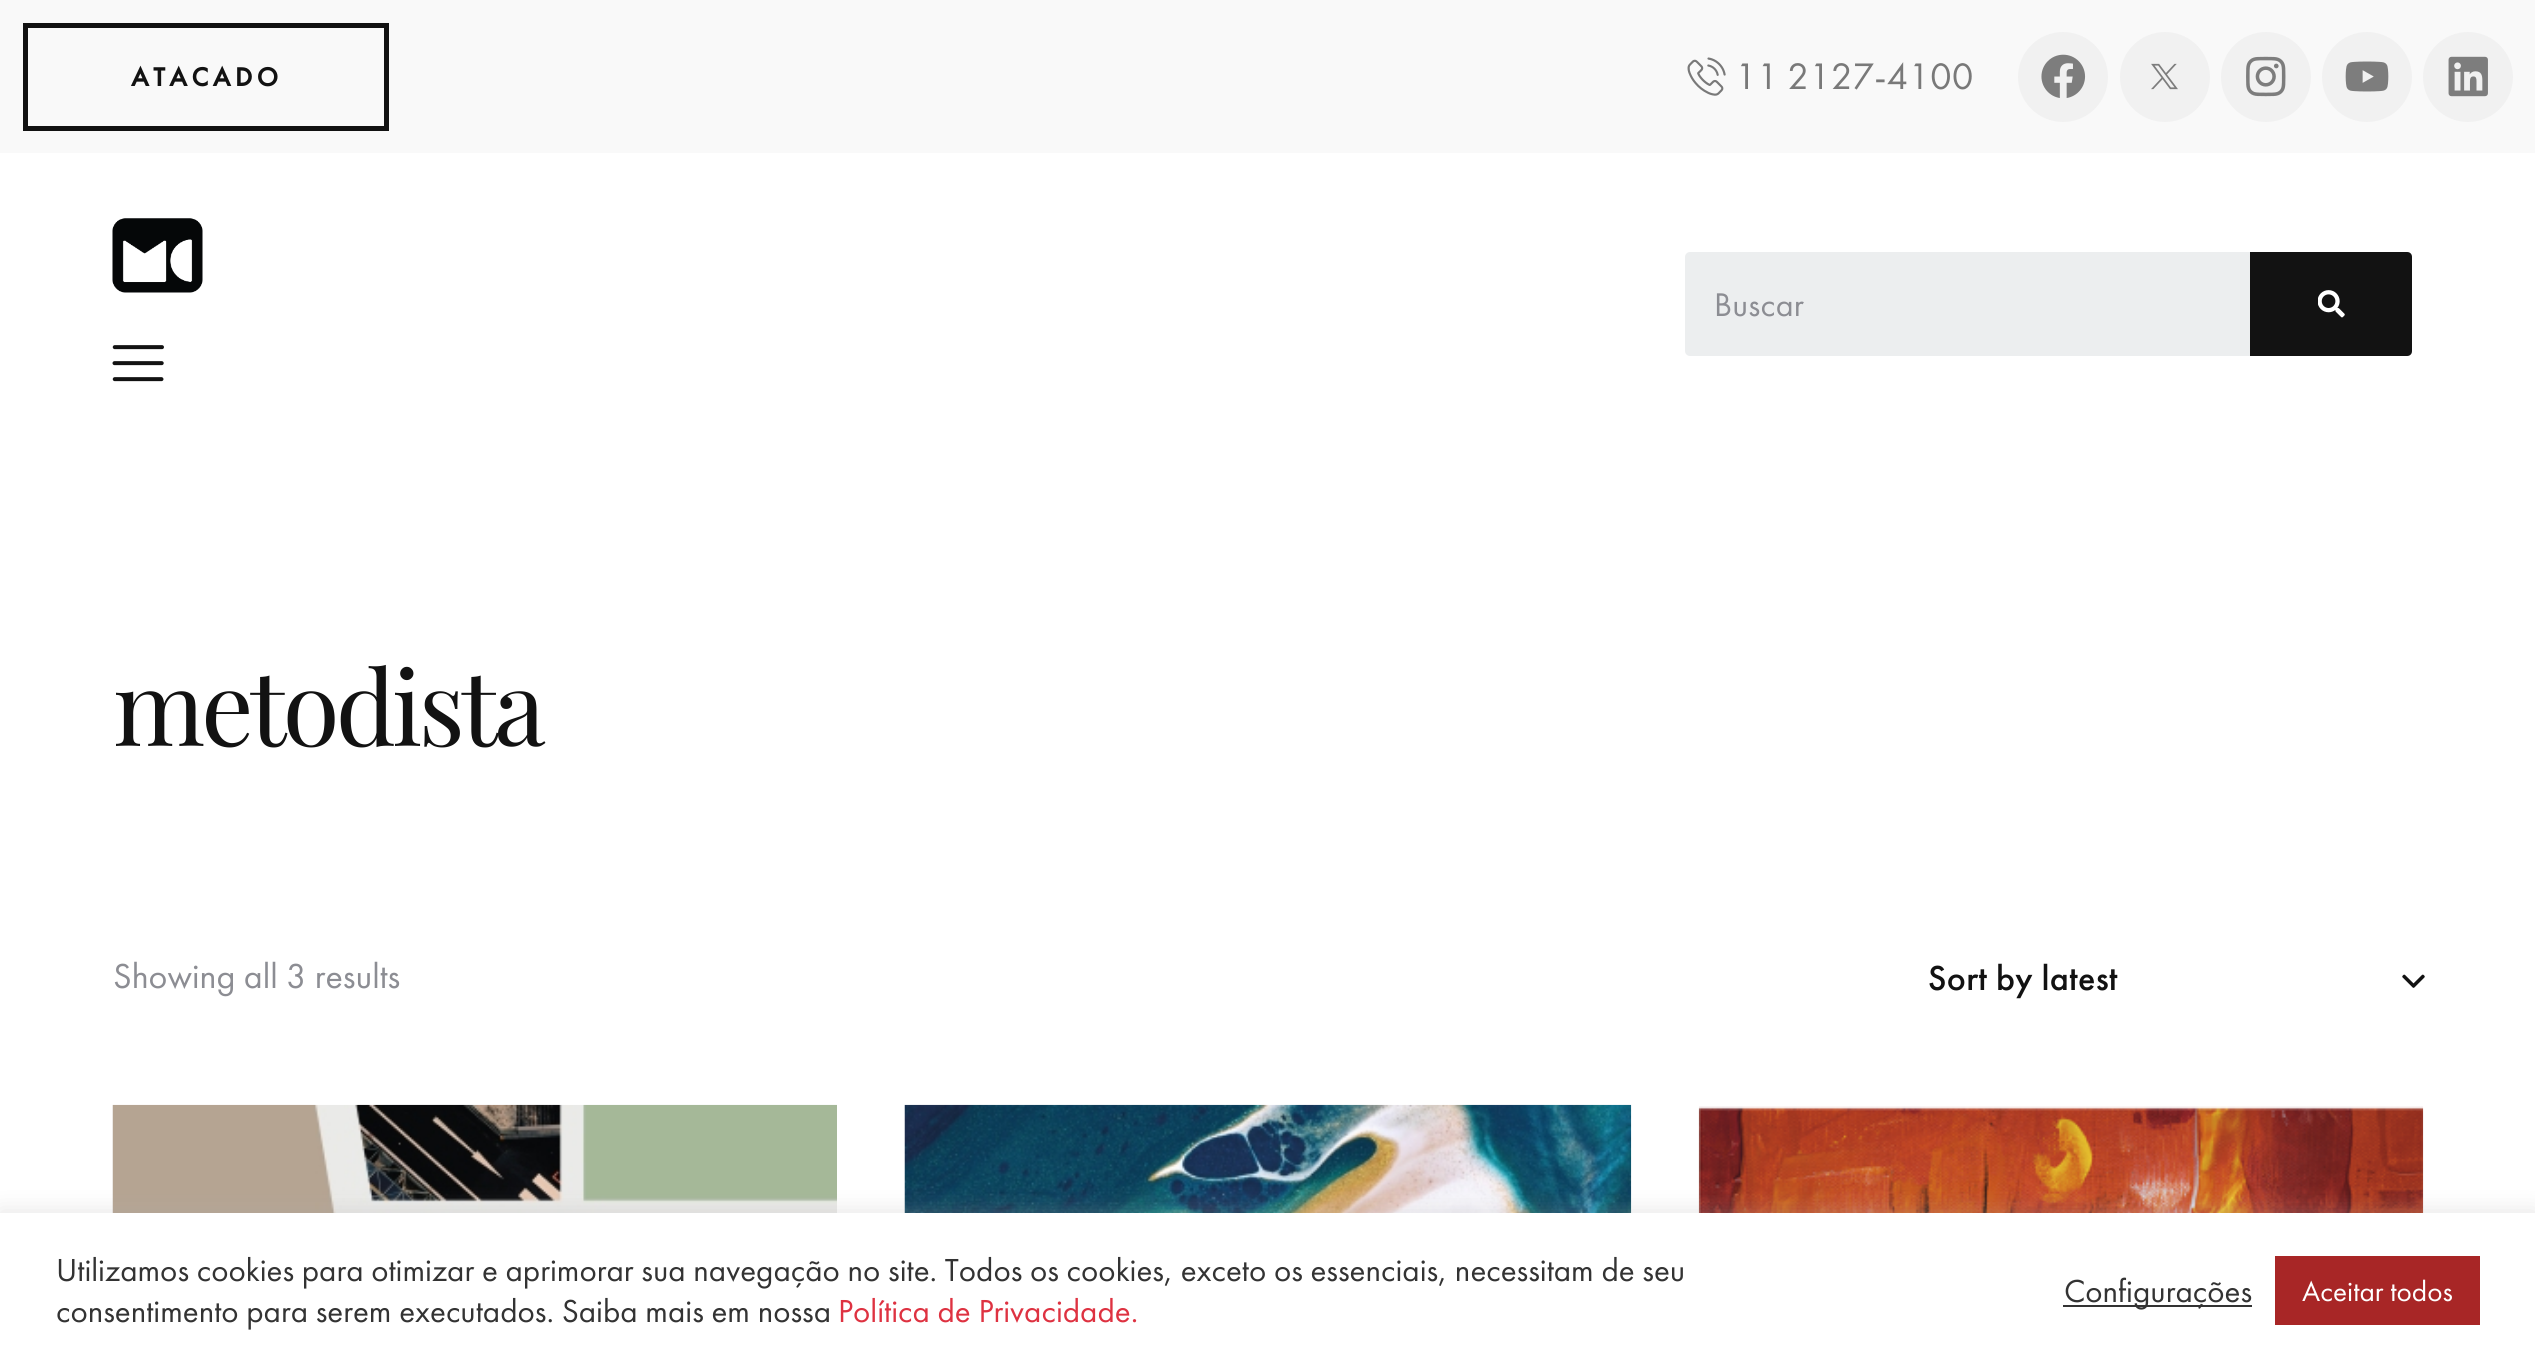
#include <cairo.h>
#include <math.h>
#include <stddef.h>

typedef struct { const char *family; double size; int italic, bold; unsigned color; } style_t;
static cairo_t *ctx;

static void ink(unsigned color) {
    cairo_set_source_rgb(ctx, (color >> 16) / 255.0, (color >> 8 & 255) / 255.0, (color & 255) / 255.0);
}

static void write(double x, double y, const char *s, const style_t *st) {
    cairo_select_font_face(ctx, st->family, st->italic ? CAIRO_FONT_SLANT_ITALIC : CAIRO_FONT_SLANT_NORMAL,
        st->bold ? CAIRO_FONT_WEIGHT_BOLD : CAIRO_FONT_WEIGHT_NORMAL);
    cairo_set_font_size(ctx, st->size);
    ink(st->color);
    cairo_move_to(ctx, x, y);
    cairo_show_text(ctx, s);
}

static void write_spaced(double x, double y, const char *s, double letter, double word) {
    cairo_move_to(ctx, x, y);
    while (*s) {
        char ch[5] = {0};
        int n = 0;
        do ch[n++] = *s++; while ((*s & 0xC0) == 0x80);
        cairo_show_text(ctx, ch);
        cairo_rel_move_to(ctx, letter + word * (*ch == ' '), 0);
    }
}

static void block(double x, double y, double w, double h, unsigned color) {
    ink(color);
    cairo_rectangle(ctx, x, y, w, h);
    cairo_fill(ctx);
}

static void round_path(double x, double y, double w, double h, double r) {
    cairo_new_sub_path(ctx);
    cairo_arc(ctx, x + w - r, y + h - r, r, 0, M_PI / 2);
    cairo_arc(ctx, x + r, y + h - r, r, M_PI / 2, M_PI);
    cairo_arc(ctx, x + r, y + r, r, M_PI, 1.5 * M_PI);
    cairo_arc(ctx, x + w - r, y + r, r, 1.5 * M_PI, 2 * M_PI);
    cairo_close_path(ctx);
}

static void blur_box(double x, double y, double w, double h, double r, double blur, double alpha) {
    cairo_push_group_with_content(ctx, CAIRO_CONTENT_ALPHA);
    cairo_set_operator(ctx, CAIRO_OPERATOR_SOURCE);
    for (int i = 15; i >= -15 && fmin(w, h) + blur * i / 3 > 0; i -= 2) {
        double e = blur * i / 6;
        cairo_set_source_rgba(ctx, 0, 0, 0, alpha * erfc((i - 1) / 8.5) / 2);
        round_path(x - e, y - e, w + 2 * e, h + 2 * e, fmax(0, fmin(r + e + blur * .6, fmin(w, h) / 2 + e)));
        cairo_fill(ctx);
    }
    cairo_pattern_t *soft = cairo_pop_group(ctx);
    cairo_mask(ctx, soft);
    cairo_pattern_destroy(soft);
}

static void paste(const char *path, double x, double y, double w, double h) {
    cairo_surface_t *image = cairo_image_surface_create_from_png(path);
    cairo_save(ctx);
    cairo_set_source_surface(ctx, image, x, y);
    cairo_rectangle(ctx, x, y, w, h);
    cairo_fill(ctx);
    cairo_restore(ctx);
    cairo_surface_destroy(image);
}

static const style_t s1 = {"Futura PT", 38.25, 0, 0, 0x797979};
static const style_t s2 = {"Futura PT", 36, 0, 0, 0x8c8d93};
static const style_t s3 = {"Futura PT", 33, 0, 0, 0x333333};
static const style_t s4 = {"Futura PT", 33, 0, 0, 0xde3241};
static const style_t s5 = {"Futura PT", 29.25, 0, 0, 0xffffff};

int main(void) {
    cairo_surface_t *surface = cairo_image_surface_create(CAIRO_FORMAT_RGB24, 2535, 1366);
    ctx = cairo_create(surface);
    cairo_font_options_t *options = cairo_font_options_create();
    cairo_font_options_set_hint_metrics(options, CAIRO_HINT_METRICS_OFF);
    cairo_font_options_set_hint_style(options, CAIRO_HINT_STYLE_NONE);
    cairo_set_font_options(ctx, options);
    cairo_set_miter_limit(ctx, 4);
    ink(0xffffff);
    cairo_paint(ctx);
    block(0, 0, 2535, 153, 0xf9f9f9);
    cairo_rectangle(ctx, 25.5, 25.5, 361, 103);
    ink(0x121212);
    cairo_set_line_width(ctx, 5);
    cairo_stroke(ctx);
    cairo_select_font_face(ctx, "Futura PT", CAIRO_FONT_SLANT_NORMAL, CAIRO_FONT_WEIGHT_BOLD);
    cairo_set_font_size(ctx, 27);
    write_spaced(131, 86, "ATACADO", 4.5, 0);
    paste("pic1.png", 1687, 57, 39, 39);
    write(1735, 89, "11 2127-4100", &s1);
    ink(0xf1f1f1);
    cairo_new_path(ctx);
    cairo_arc(ctx, 2063, 77, 45, 0, 2 * M_PI);
    cairo_fill(ctx);
    paste("pic2.png", 2041, 54, 45, 44);
    cairo_arc(ctx, 2165, 77, 45, 0, 2 * M_PI);
    cairo_fill(ctx);
    paste("pic3.png", 2151, 63, 27, 27);
    cairo_arc(ctx, 2266, 77, 45, 0, 2 * M_PI);
    cairo_fill(ctx);
    paste("pic4.png", 2246, 56, 40, 41);
    cairo_arc(ctx, 2367, 77, 45, 0, 2 * M_PI);
    cairo_fill(ctx);
    paste("pic5.png", 2345, 61, 44, 31);
    cairo_arc(ctx, 2468, 77, 45, 0, 2 * M_PI);
    cairo_fill(ctx);
    paste("pic6.png", 2448, 56, 40, 41);
    paste("pic7.png", 112, 218, 91, 75);
    paste("pic8.png", 112, 345, 52, 37);
    ink(0xeceeef);
    round_path(1684, 251, 729, 106, 6);
    cairo_fill_preserve(ctx);
    ink(0xffffff);
    cairo_set_line_width(ctx, 2);
    cairo_stroke(ctx);
    cairo_set_font_size(ctx, 34);
    ink(0x8c8d93);
    write_spaced(1714, 316, "Buscar", 0.25, 0);
    ink(0x121212);
    cairo_new_path(ctx);
    cairo_move_to(ctx, 2250, 252);
    cairo_line_to(ctx, 2407, 252);
    cairo_curve_to(ctx, 2410, 252, 2412, 254, 2412, 257);
    cairo_line_to(ctx, 2412, 351);
    cairo_curve_to(ctx, 2412, 354, 2410, 356, 2407, 356);
    cairo_line_to(ctx, 2250, 356);
    cairo_close_path(ctx);
    cairo_fill(ctx);
    paste("pic9.png", 2318, 290, 27, 28);
    cairo_select_font_face(ctx, "Playfair Display", CAIRO_FONT_SLANT_NORMAL, CAIRO_FONT_WEIGHT_NORMAL);
    cairo_set_font_size(ctx, 103.5);
    write_spaced(113, 746, "metodista", -3.75, 0);
    write(113, 988, "Showing all 3 results", &s2);
    cairo_select_font_face(ctx, "Futura PT Medium", CAIRO_FONT_SLANT_NORMAL, CAIRO_FONT_WEIGHT_NORMAL);
    ink(0x121212);
    write_spaced(1928, 990, "Sort by latest", 0.25, 0);
    paste("pic10.png", 2402, 974, 23, 14);
    paste("pic11.png", 112, 1104, 725, 109);
    paste("pic12.png", 904, 1104, 728, 109);
    paste("pic13.png", 1698, 1106, 726, 107);
    ink(0xacabab);
    blur_box(0, 1211, 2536, 155, 0, 11, 0.3);
    block(0, 1213, 2535, 153, 0xffffff);
    write(56, 1281, "Utilizamos cookies para otimizar e aprimorar sua navegação no site. Todos os cookies, exceto os essenciais, necessitam de seu", &s3);
    write(56, 1322, "consentimento para serem executados. Saiba mais em nossa", &s3);
    write(838, 1322, "Política de Privacidade.", &s4);
    block(2063, 1305, 189, 2, 0x333333);
    write(2064, 1302, "Configurações", &s3);
    block(2275, 1256, 205, 69, 0xa82626);
    write(2302, 1301, "Aceitar todos", &s5);
    cairo_surface_write_to_png(surface, "screenshot.png");
    cairo_font_options_destroy(options);
    cairo_destroy(ctx);
    cairo_surface_destroy(surface);
    return 0;
}
